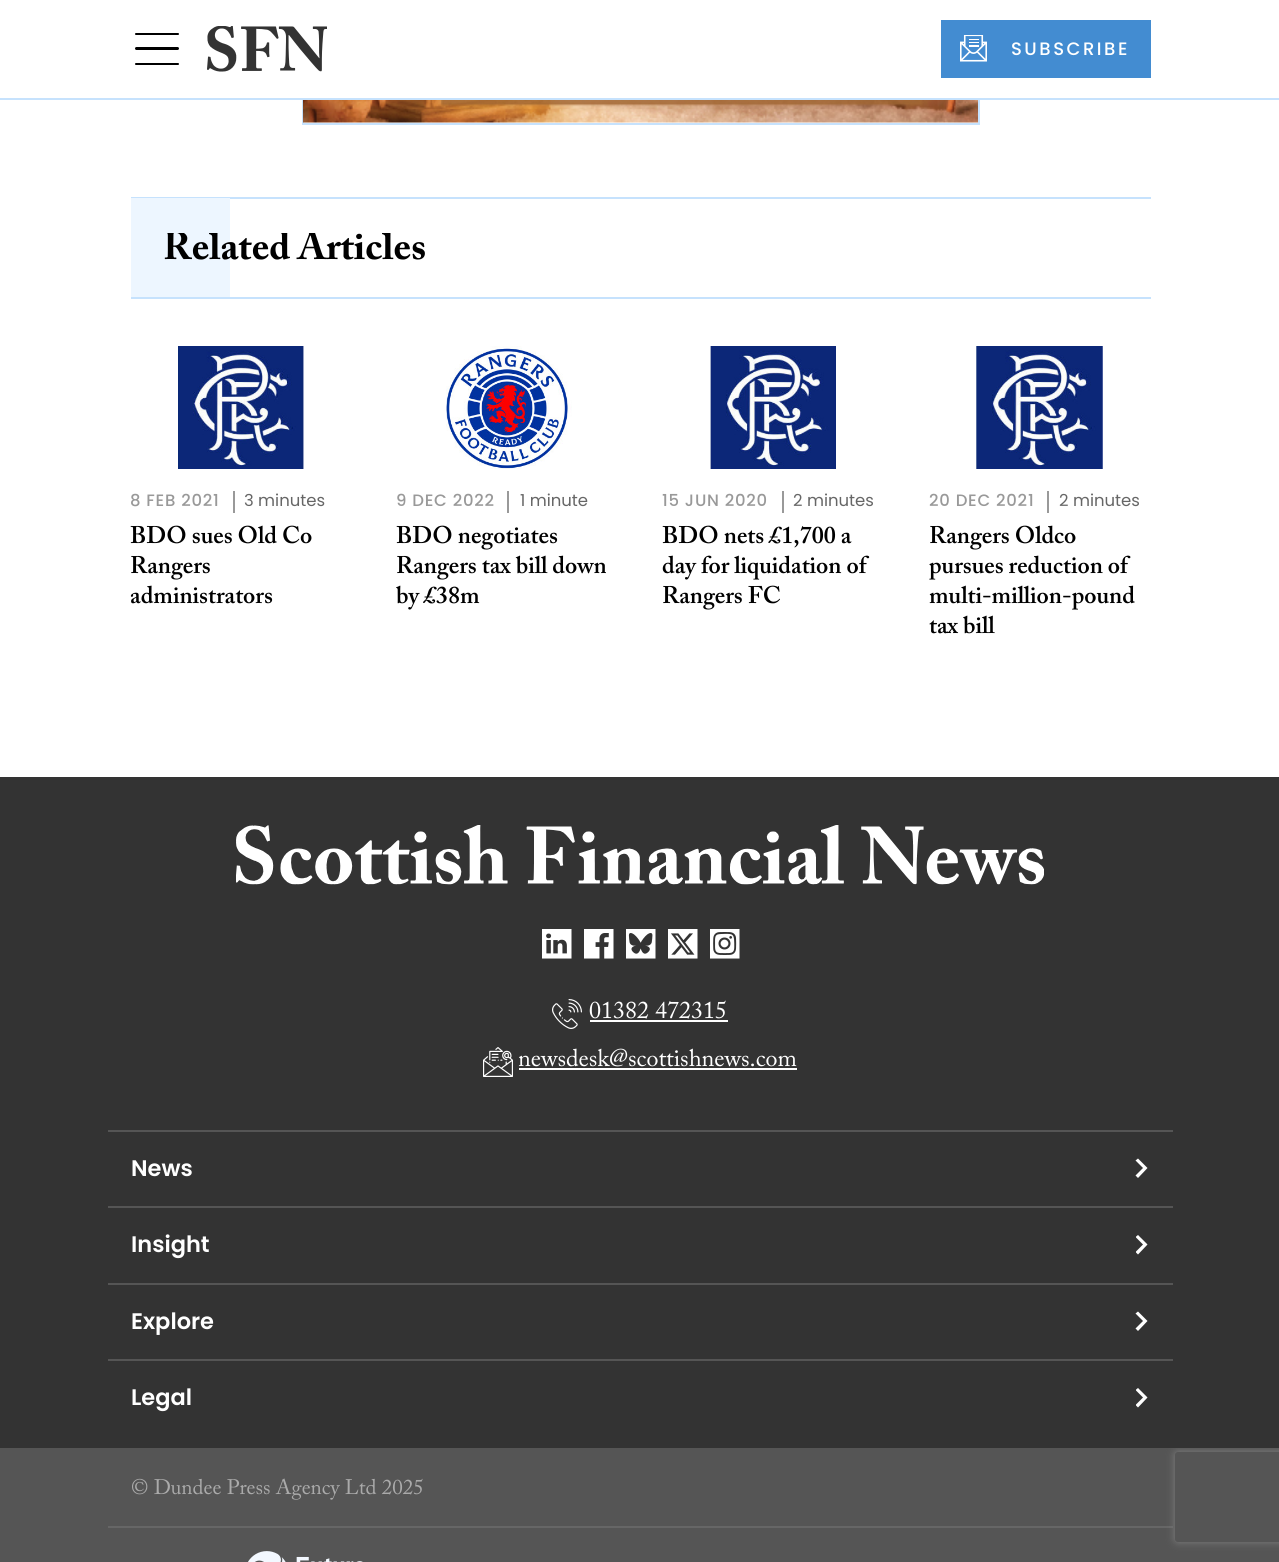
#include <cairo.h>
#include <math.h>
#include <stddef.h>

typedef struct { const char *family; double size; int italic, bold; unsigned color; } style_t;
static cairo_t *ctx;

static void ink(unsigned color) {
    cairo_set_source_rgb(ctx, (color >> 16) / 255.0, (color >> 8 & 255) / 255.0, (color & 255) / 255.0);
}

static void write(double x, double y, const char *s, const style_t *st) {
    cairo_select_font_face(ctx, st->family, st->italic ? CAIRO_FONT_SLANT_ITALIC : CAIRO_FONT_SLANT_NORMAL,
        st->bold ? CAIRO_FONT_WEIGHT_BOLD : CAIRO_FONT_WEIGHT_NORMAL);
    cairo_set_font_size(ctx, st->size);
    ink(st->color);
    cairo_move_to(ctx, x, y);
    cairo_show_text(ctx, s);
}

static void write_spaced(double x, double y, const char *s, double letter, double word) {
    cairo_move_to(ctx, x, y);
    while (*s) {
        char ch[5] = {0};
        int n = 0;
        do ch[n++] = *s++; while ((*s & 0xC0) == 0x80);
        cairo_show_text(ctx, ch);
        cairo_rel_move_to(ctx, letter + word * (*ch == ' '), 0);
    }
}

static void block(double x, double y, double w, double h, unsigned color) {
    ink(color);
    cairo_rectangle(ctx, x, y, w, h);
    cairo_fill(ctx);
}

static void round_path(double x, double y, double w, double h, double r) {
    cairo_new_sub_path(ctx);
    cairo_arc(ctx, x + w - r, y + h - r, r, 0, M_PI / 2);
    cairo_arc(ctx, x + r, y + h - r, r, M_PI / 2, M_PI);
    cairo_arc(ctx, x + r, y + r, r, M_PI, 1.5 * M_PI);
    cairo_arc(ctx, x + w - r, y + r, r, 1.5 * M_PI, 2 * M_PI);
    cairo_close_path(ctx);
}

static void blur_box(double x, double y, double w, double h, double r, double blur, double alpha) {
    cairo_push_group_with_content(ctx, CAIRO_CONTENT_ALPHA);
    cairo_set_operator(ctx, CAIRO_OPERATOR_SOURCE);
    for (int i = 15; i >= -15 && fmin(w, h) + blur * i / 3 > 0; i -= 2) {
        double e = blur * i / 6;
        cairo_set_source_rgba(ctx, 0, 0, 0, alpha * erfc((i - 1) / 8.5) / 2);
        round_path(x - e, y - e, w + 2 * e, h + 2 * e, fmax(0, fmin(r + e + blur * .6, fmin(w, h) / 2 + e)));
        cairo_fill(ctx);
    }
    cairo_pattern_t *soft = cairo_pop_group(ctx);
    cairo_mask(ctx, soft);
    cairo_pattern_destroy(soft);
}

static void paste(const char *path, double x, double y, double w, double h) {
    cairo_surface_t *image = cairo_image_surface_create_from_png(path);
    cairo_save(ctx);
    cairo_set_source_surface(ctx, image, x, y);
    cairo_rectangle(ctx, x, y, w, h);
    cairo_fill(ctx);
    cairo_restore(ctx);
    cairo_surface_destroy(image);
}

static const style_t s1 = {"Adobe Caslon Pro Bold", 39, 0, 1, 0x000000};
static const style_t s2 = {"Poppins", 16.5, 0, 0, 0x666666};
static const style_t s3 = {"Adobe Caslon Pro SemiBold", 24, 0, 0, 0x000000};
static const style_t s4 = {"Adobe Caslon Pro", 24, 0, 0, 0xffffff};
static const style_t s5 = {"Poppins SemiBold", 22.5, 0, 0, 0xffffff};
static const style_t s6 = {"Adobe Caslon Pro", 21, 0, 0, 0xaaaaaa};

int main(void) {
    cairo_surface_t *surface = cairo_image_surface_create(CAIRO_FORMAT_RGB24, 1279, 1562);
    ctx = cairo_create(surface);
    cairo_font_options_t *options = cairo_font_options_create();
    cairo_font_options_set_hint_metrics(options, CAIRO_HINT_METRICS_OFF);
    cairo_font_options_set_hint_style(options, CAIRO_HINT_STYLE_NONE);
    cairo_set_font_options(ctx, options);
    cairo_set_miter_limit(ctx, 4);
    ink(0x555555);
    cairo_paint(ctx);
    block(0, 100, 1279, 677, 0xffffff);
    cairo_rectangle(ctx, 303, -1, 676, 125);
    ink(0xc6e2fd);
    cairo_stroke(ctx);
    block(0, 0, 1279, 98, 0xffffff);
    block(0, 98, 1279, 2, 0xc6e2fd);
    ink(0x000000);
    round_path(135, 33, 44, 2, 1);
    cairo_fill(ctx);
    round_path(135, 47, 44, 3, 1.5);
    cairo_fill(ctx);
    round_path(135, 63, 44, 2, 1);
    cairo_fill(ctx);
    paste("pic1.png", 207, 26, 120, 46);
    block(941, 20, 210, 58, 0x438cd1);
    paste("pic2.png", 960, 35, 27, 27);
    cairo_select_font_face(ctx, "Poppins Medium", CAIRO_FONT_SLANT_NORMAL, CAIRO_FONT_WEIGHT_NORMAL);
    cairo_set_font_size(ctx, 18);
    ink(0xffffff);
    write_spaced(1011, 55, "SUBSCRIBE", 2.5, 0);
    paste("pic3.png", 303, 100, 675, 23);
    block(131, 197, 1020, 2, 0xc6e2fd);
    block(131, 297, 1020, 2, 0xc6e2fd);
    block(131, 198, 99, 99, 0xedf6ff);
    cairo_save(ctx);
    cairo_rectangle(ctx, 164, 233, 987, 42);
    cairo_clip(ctx);
    write(163, 259, "Related Articles", &s1);
    cairo_restore(ctx);
    paste("pic4.png", 178, 346, 126, 123);
    cairo_set_font_size(ctx, 16.5);
    ink(0x999999);
    write_spaced(130, 506, "8 FEB 2021", 0.75, 0);
    block(233, 491, 2, 22, 0x999999);
    write(244, 506, "3 minutes", &s2);
    write(130, 543, "BDO sues Old Co", &s3);
    write(130, 573, "Rangers", &s3);
    write(130, 603, "administrators", &s3);
    paste("pic5.png", 446, 346, 126, 123);
    cairo_select_font_face(ctx, "Poppins Medium", CAIRO_FONT_SLANT_NORMAL, CAIRO_FONT_WEIGHT_NORMAL);
    cairo_set_font_size(ctx, 16.5);
    ink(0x999999);
    write_spaced(396, 506, "9 DEC 2022", 0.75, 0);
    block(507, 491, 2, 22, 0x999999);
    write(520, 506, "1 minute", &s2);
    write(396, 543, "BDO negotiates", &s3);
    write(396, 573, "Rangers tax bill down", &s3);
    write(396, 603, "by £38m", &s3);
    paste("pic6.png", 710, 346, 126, 123);
    cairo_select_font_face(ctx, "Poppins Medium", CAIRO_FONT_SLANT_NORMAL, CAIRO_FONT_WEIGHT_NORMAL);
    cairo_set_font_size(ctx, 16.5);
    ink(0x999999);
    write_spaced(662, 506, "15 JUN 2020", 0.75, 0);
    block(782, 491, 2, 22, 0x999999);
    write(793, 506, "2 minutes", &s2);
    write(662, 543, "BDO nets £1,700 a", &s3);
    write(662, 573, "day for liquidation of", &s3);
    write(662, 603, "Rangers FC", &s3);
    paste("pic7.png", 976, 346, 127, 123);
    cairo_select_font_face(ctx, "Poppins Medium", CAIRO_FONT_SLANT_NORMAL, CAIRO_FONT_WEIGHT_NORMAL);
    cairo_set_font_size(ctx, 16.5);
    ink(0x999999);
    write_spaced(929, 506, "20 DEC 2021", 0.75, 0);
    block(1047, 491, 2, 22, 0x999999);
    write(1059, 506, "2 minutes", &s2);
    write(929, 543, "Rangers Oldco", &s3);
    write(929, 573, "pursues reduction of", &s3);
    write(929, 603, "multi-million-pound", &s3);
    write(929, 633, "tax bill", &s3);
    block(108, 1526, 1065, 2, 0x666666);
    cairo_save(ctx);
    cairo_set_fill_rule(ctx, CAIRO_FILL_RULE_EVEN_ODD);
    cairo_new_path(ctx);
    cairo_move_to(ctx, 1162, 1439);
    cairo_line_to(ctx, 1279, 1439);
    cairo_line_to(ctx, 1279, 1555);
    cairo_line_to(ctx, 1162, 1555);
    cairo_close_path(ctx);
    cairo_move_to(ctx, 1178, 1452);
    cairo_line_to(ctx, 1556, 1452);
    cairo_curve_to(ctx, 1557.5, 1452, 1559, 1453.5, 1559, 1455);
    cairo_line_to(ctx, 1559, 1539);
    cairo_curve_to(ctx, 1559, 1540.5, 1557.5, 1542, 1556, 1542);
    cairo_line_to(ctx, 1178, 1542);
    cairo_curve_to(ctx, 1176.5, 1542, 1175, 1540.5, 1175, 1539);
    cairo_line_to(ctx, 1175, 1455);
    cairo_curve_to(ctx, 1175, 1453.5, 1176.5, 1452, 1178, 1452);
    cairo_close_path(ctx);
    cairo_clip(ctx);
    ink(0x808080);
    blur_box(1175, 1452, 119, 90, 3, 4, 1);
    cairo_restore(ctx);
    block(0, 777, 1279, 671, 0x333333);
    block(108, 1130, 1065, 2, 0x555555);
    paste("pic8.png", 236, 825, 808, 60);
    paste("pic9.png", 542, 929, 30, 30);
    paste("pic10.png", 584, 929, 30, 30);
    paste("pic11.png", 626, 929, 30, 30);
    paste("pic12.png", 668, 929, 30, 30);
    paste("pic13.png", 710, 929, 30, 30);
    paste("pic14.png", 552, 999, 30, 30);
    write(589, 1018, "01382 472315", &s4);
    block(590, 1020, 138, 2, 0xffffff);
    paste("pic15.png", 483, 1047, 30, 30);
    write(518, 1066, "newsdesk@scottishnews.com", &s4);
    block(519, 1068, 278, 2, 0xffffff);
    block(108, 1206, 1065, 2, 0x555555);
    write(131, 1176, "News", &s5);
    cairo_set_fill_rule(ctx, CAIRO_FILL_RULE_EVEN_ODD);
    cairo_new_path(ctx);
    cairo_move_to(ctx, 1138, 1158.5);
    cairo_line_to(ctx, 1135.5, 1160.5);
    cairo_line_to(ctx, 1143, 1168);
    cairo_line_to(ctx, 1135.5, 1175.5);
    cairo_line_to(ctx, 1138, 1178);
    cairo_line_to(ctx, 1147.5, 1168);
    cairo_close_path(ctx);
    cairo_fill(ctx);
    block(108, 1283, 1065, 2, 0x555555);
    write(131, 1252, "Insight", &s5);
    cairo_save(ctx);
    cairo_set_fill_rule(ctx, CAIRO_FILL_RULE_WINDING);
    cairo_rectangle(ctx, 1136, 1235, 13, 21);
    cairo_clip(ctx);
    cairo_set_fill_rule(ctx, CAIRO_FILL_RULE_EVEN_ODD);
    cairo_new_path(ctx);
    cairo_move_to(ctx, 1138, 1235);
    cairo_line_to(ctx, 1135.5, 1237);
    cairo_line_to(ctx, 1143, 1244.5);
    cairo_line_to(ctx, 1135.5, 1252);
    cairo_line_to(ctx, 1138, 1254.5);
    cairo_line_to(ctx, 1147.5, 1244.5);
    cairo_close_path(ctx);
    cairo_fill(ctx);
    cairo_restore(ctx);
    block(108, 1359, 1065, 2, 0x555555);
    write(131, 1329, "Explore", &s5);
    cairo_new_path(ctx);
    cairo_move_to(ctx, 1138, 1311.5);
    cairo_line_to(ctx, 1135.5, 1313.5);
    cairo_line_to(ctx, 1143, 1321);
    cairo_line_to(ctx, 1135.5, 1328.5);
    cairo_line_to(ctx, 1138, 1331);
    cairo_line_to(ctx, 1147.5, 1321);
    cairo_close_path(ctx);
    cairo_fill(ctx);
    write(131, 1405, "Legal", &s5);
    cairo_save(ctx);
    cairo_set_fill_rule(ctx, CAIRO_FILL_RULE_WINDING);
    cairo_rectangle(ctx, 1136, 1388, 13, 21);
    cairo_clip(ctx);
    cairo_set_fill_rule(ctx, CAIRO_FILL_RULE_EVEN_ODD);
    cairo_new_path(ctx);
    cairo_move_to(ctx, 1138, 1388);
    cairo_line_to(ctx, 1135.5, 1390);
    cairo_line_to(ctx, 1143, 1397.5);
    cairo_line_to(ctx, 1135.5, 1405);
    cairo_line_to(ctx, 1138, 1407.5);
    cairo_line_to(ctx, 1147.5, 1397.5);
    cairo_close_path(ctx);
    cairo_fill(ctx);
    cairo_restore(ctx);
    write(131, 1494, "© Dundee Press Agency Ltd 2025", &s6);
    paste("pic16.png", 248, 1551, 115, 11);
    cairo_surface_write_to_png(surface, "screenshot.png");
    cairo_font_options_destroy(options);
    cairo_destroy(ctx);
    cairo_surface_destroy(surface);
    return 0;
}
